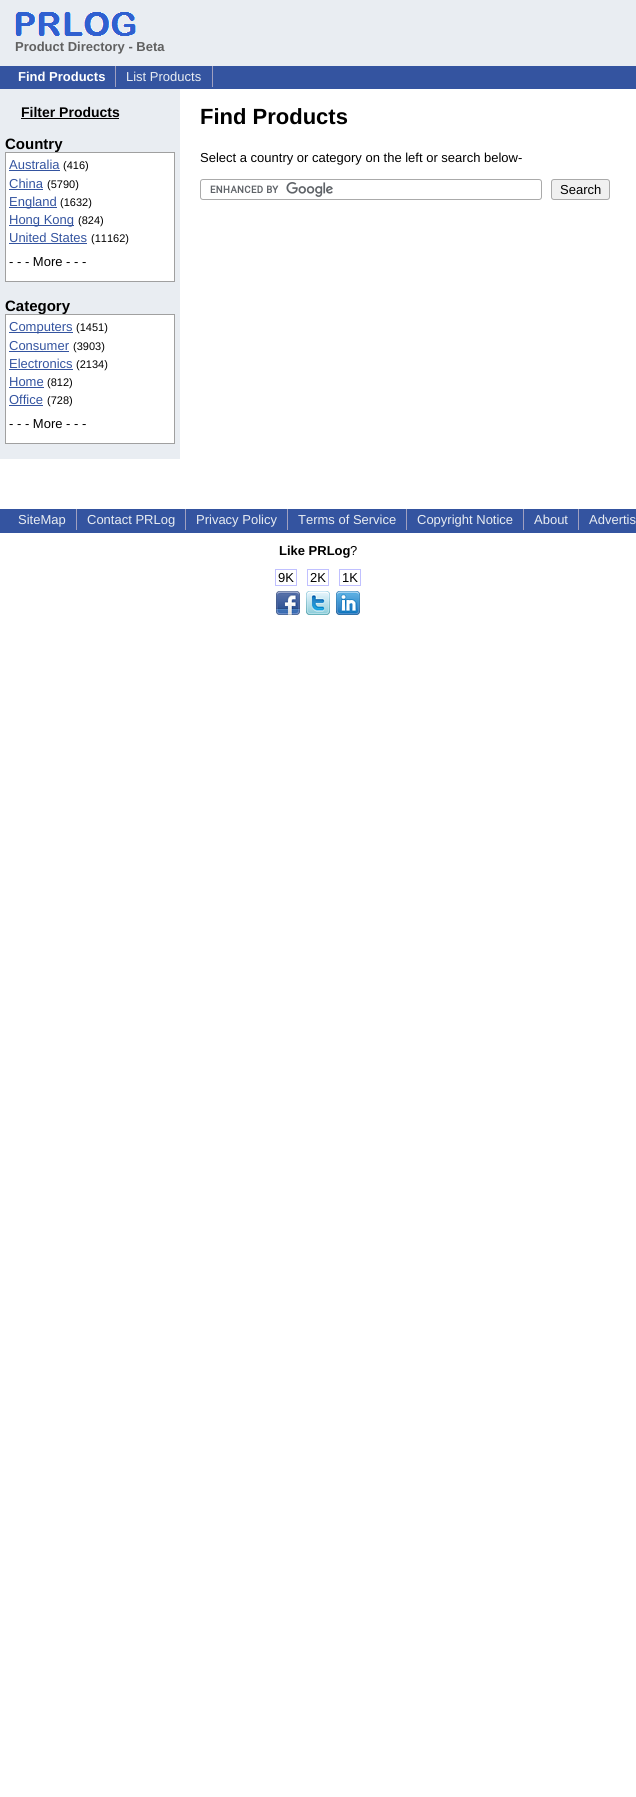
#include <cairo.h>
#include <math.h>
#include <stddef.h>

typedef struct { const char *family; double size; int italic, bold; unsigned color; } style_t;
static cairo_t *ctx;

static void ink(unsigned color) {
    cairo_set_source_rgb(ctx, (color >> 16) / 255.0, (color >> 8 & 255) / 255.0, (color & 255) / 255.0);
}

static void write(double x, double y, const char *s, const style_t *st) {
    cairo_select_font_face(ctx, st->family, st->italic ? CAIRO_FONT_SLANT_ITALIC : CAIRO_FONT_SLANT_NORMAL,
        st->bold ? CAIRO_FONT_WEIGHT_BOLD : CAIRO_FONT_WEIGHT_NORMAL);
    cairo_set_font_size(ctx, st->size);
    ink(st->color);
    cairo_move_to(ctx, x, y);
    cairo_show_text(ctx, s);
}

static void block(double x, double y, double w, double h, unsigned color) {
    ink(color);
    cairo_rectangle(ctx, x, y, w, h);
    cairo_fill(ctx);
}

static void round_path(double x, double y, double w, double h, double r) {
    cairo_new_sub_path(ctx);
    cairo_arc(ctx, x + w - r, y + h - r, r, 0, M_PI / 2);
    cairo_arc(ctx, x + r, y + h - r, r, M_PI / 2, M_PI);
    cairo_arc(ctx, x + r, y + r, r, M_PI, 1.5 * M_PI);
    cairo_arc(ctx, x + w - r, y + r, r, 1.5 * M_PI, 2 * M_PI);
    cairo_close_path(ctx);
}

static void paste(const char *path, double x, double y, double w, double h) {
    cairo_surface_t *image = cairo_image_surface_create_from_png(path);
    cairo_save(ctx);
    cairo_set_source_surface(ctx, image, x, y);
    cairo_rectangle(ctx, x, y, w, h);
    cairo_fill(ctx);
    cairo_restore(ctx);
    cairo_surface_destroy(image);
}

static const style_t s1 = {"Liberation Sans", 13, 0, 1, 0x606060};
static const style_t s2 = {"Liberation Sans", 13, 0, 1, 0xffffff};
static const style_t s3 = {"Liberation Sans", 13, 0, 0, 0xe9edf2};
static const style_t s4 = {"Liberation Sans", 14, 0, 1, 0x000000};
static const style_t s5 = {"Liberation Sans", 15, 0, 1, 0x000000};
static const style_t s6 = {"Liberation Sans", 13, 0, 0, 0x3454a0};
static const style_t s7 = {"Liberation Sans", 11, 0, 0, 0x000000};
static const style_t s8 = {"Liberation Sans", 13, 0, 0, 0x000000};
static const style_t s9 = {"Liberation Sans", 22, 0, 1, 0x000000};
static const style_t s10 = {"Liberation Sans", 13, 0, 1, 0x000000};

int main(void) {
    cairo_surface_t *surface = cairo_image_surface_create(CAIRO_FORMAT_RGB24, 636, 1797);
    ctx = cairo_create(surface);
    cairo_font_options_t *options = cairo_font_options_create();
    cairo_font_options_set_hint_metrics(options, CAIRO_HINT_METRICS_OFF);
    cairo_font_options_set_hint_style(options, CAIRO_HINT_STYLE_NONE);
    cairo_set_font_options(ctx, options);
    cairo_set_miter_limit(ctx, 4);
    ink(0xffffff);
    cairo_paint(ctx);
    block(0, 0, 636, 66, 0xe9edf2);
    paste("pic1.png", 15, 12, 121, 24);
    write(15, 51, "Product Directory - Beta", &s1);
    block(0, 66, 636, 23, 0x3454a0);
    block(115, 66, 1, 21, 0xa0a0c0);
    write(18, 81, "Find Products", &s2);
    block(212, 66, 1, 21, 0xa0a0c0);
    write(126, 81, "List Products", &s3);
    block(0, 89, 180, 370, 0xe9edf2);
    write(21, 117, "Filter Products", &s4);
    block(21, 118, 98, 1, 0x000000);
    write(5, 149, "Country", &s5);
    ink(0xffffff);
    cairo_rectangle(ctx, 5.5, 152.5, 169, 129);
    cairo_fill_preserve(ctx);
    ink(0xa0a0a0);
    cairo_set_line_width(ctx, 1);
    cairo_stroke(ctx);
    write(9, 169, "Australia", &s6);
    block(9, 170, 51, 1, 0x3454a0);
    write(63, 169, "(416)", &s7);
    write(9, 188, "China", &s6);
    block(9, 189, 34, 1, 0x3454a0);
    write(47, 188, "(5790)", &s7);
    block(9, 207, 48, 1, 0x3454a0);
    write(9, 206, "England", &s6);
    write(60, 206, "(1632)", &s7);
    block(9, 225, 65, 1, 0x3454a0);
    write(9, 224, "Hong Kong", &s6);
    write(78, 224, "(824)", &s7);
    write(9, 242, "United States", &s6);
    block(9, 243, 78, 1, 0x3454a0);
    write(91, 242, "(11162)", &s7);
    write(9, 266, "- - - More - - -", &s8);
    write(5, 311, "Category", &s5);
    ink(0xffffff);
    cairo_rectangle(ctx, 5.5, 314.5, 169, 129);
    cairo_fill_preserve(ctx);
    ink(0xa0a0a0);
    cairo_stroke(ctx);
    block(9, 332, 64, 1, 0x3454a0);
    write(9, 331, "Computers", &s6);
    write(76, 331, "(1451)", &s7);
    write(9, 350, "Consumer", &s6);
    block(9, 351, 60, 1, 0x3454a0);
    write(73, 350, "(3903)", &s7);
    write(9, 368, "Electronics", &s6);
    block(9, 369, 64, 1, 0x3454a0);
    write(76, 368, "(2134)", &s7);
    write(9, 386, "Home", &s6);
    block(9, 387, 35, 1, 0x3454a0);
    write(47, 386, "(812)", &s7);
    write(9, 404, "Office", &s6);
    block(9, 405, 34, 1, 0x3454a0);
    write(47, 404, "(728)", &s7);
    write(9, 428, "- - - More - - -", &s8);
    write(200, 124, "Find Products", &s9);
    write(200, 162, "Select a country or category on the left or search below-", &s8);
    paste("pic2.png", 210, 182, 123, 15);
    round_path(200.5, 179.5, 341, 20, 2.5);
    ink(0xaaaaaa);
    cairo_stroke(ctx);
    ink(0xf0f0f0);
    round_path(551.5, 179.5, 58, 20, 2.5);
    cairo_fill_preserve(ctx);
    ink(0xaaaaaa);
    cairo_stroke(ctx);
    write(560, 194, "Search", &s8);
    block(0, 509, 636, 24, 0x3454a0);
    block(76, 509, 1, 21, 0xa0a0c0);
    write(18, 524, "SiteMap", &s3);
    block(185, 509, 1, 21, 0xa0a0c0);
    write(87, 524, "Contact PRLog", &s3);
    block(287, 509, 1, 21, 0xa0a0c0);
    write(196, 524, "Privacy Policy", &s3);
    block(406, 509, 1, 21, 0xa0a0c0);
    write(298, 524, "Terms of Service", &s3);
    block(523, 509, 1, 21, 0xa0a0c0);
    write(417, 524, "Copyright Notice", &s3);
    block(578, 509, 1, 21, 0xa0a0c0);
    write(534, 524, "About", &s3);
    write(589, 524, "Advertis", &s3);
    write(279, 555, "Like PRLog", &s10);
    write(350, 555, "?", &s8);
    cairo_rectangle(ctx, 275.5, 569.5, 21, 16);
    ink(0xc0c0ff);
    cairo_stroke(ctx);
    write(278, 582, "9K", &s8);
    cairo_rectangle(ctx, 307.5, 569.5, 21, 16);
    ink(0xc0c0ff);
    cairo_stroke(ctx);
    write(310, 582, "2K", &s8);
    cairo_rectangle(ctx, 339.5, 569.5, 21, 16);
    ink(0xc0c0ff);
    cairo_stroke(ctx);
    write(342, 582, "1K", &s8);
    paste("pic3.png", 276, 591, 84, 24);
    cairo_surface_write_to_png(surface, "screenshot.png");
    cairo_font_options_destroy(options);
    cairo_destroy(ctx);
    cairo_surface_destroy(surface);
    return 0;
}
